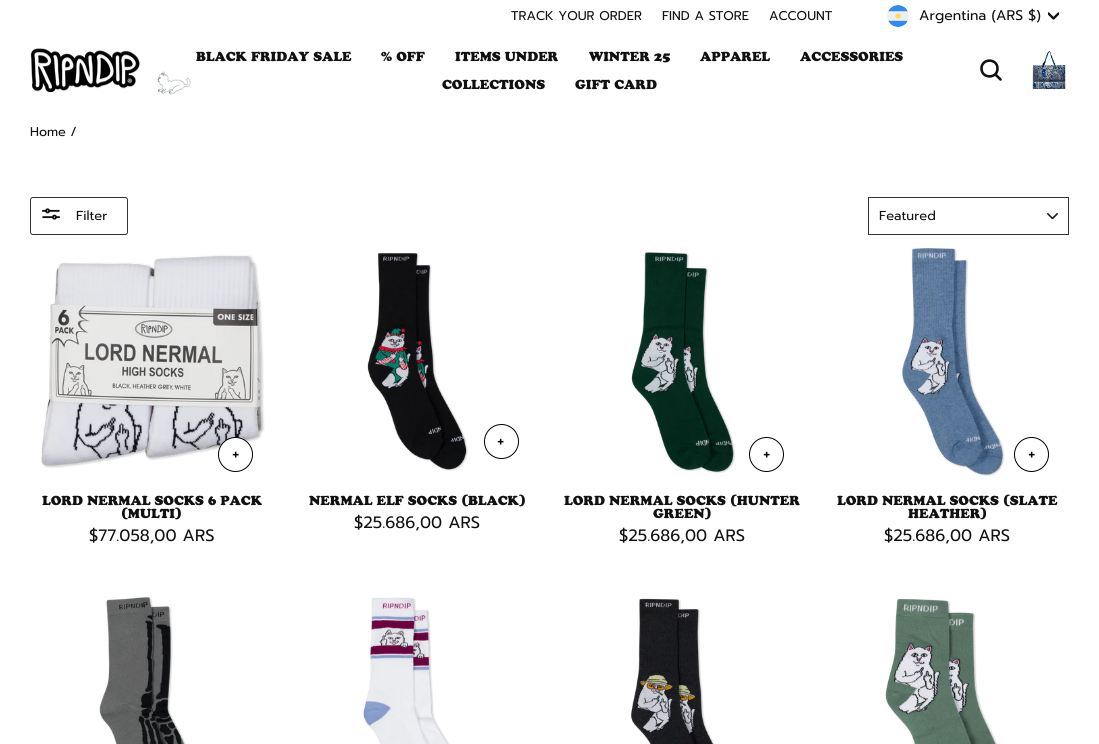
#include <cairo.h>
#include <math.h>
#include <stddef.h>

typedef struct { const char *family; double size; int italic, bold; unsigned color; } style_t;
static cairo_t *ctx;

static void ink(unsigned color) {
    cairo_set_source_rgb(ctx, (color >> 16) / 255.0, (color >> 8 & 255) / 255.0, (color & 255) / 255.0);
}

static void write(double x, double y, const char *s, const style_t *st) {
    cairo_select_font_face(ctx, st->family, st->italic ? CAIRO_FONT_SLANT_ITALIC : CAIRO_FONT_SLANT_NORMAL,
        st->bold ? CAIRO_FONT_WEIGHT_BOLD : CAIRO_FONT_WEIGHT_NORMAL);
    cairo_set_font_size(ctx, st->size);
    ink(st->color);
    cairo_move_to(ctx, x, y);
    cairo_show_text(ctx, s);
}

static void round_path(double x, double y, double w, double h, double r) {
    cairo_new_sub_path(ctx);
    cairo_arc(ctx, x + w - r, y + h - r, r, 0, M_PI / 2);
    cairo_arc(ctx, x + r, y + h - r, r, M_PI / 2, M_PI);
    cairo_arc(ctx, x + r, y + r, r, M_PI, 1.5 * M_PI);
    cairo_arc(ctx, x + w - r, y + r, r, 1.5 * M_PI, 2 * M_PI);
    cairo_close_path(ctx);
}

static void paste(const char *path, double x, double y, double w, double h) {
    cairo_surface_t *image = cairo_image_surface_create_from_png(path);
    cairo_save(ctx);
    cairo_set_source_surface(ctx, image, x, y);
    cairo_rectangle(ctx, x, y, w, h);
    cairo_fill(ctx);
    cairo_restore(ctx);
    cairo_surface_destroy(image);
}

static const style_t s1 = {"Prompt", 12.75, 0, 0, 0x111111};
static const style_t s2 = {"Prompt", 14, 0, 0, 0x111111};
static const style_t s3 = {"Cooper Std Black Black", 13, 0, 0, 0x111111};
static const style_t s4 = {"Prompt", 13, 0, 0, 0x111111};
static const style_t s5 = {"Prompt", 18, 0, 0, 0x000000};
static const style_t s6 = {"Prompt", 16.5, 0, 0, 0x111111};

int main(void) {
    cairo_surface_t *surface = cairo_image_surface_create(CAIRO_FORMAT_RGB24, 1099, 744);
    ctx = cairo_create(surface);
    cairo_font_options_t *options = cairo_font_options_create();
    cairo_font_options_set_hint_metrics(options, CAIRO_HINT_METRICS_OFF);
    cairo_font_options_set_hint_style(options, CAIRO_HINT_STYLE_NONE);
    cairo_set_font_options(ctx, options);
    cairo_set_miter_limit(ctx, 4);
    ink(0xffffff);
    cairo_paint(ctx);
    write(511, 20, "TRACK YOUR ORDER", &s1);
    write(662, 20, "FIND A STORE", &s1);
    write(769, 20, "ACCOUNT", &s1);
    paste("pic1.png", 887, 5, 22, 22);
    write(919, 20, "Argentina (ARS $)", &s2);
    cairo_save(ctx);
    cairo_rectangle(ctx, 1048, 11, 11, 11);
    cairo_clip(ctx);
    cairo_new_path(ctx);
    cairo_move_to(ctx, 1048.5, 13.5);
    cairo_line_to(ctx, 1053.5, 18.5);
    cairo_line_to(ctx, 1058.5, 13.5);
    cairo_set_line_width(ctx, 2.4);
    cairo_set_line_cap(ctx, CAIRO_LINE_CAP_ROUND);
    cairo_set_line_join(ctx, CAIRO_LINE_JOIN_ROUND);
    cairo_stroke(ctx);
    cairo_restore(ctx);
    paste("pic2.png", 30, 48, 110, 45);
    paste("pic3.png", 157, 71, 34, 24);
    write(196, 61, "BLACK FRIDAY SALE", &s3);
    write(381, 61, "% OFF", &s3);
    write(455, 61, "ITEMS UNDER", &s3);
    write(589, 61, "WINTER 25", &s3);
    write(700, 61, "APPAREL", &s3);
    write(800, 61, "ACCESSORIES", &s3);
    write(442, 89, "COLLECTIONS", &s3);
    write(575, 89, "GIFT CARD", &s3);
    cairo_new_path(ctx);
    cairo_move_to(ctx, 997.5, 68.5);
    cairo_curve_to(ctx, 997.5, 79, 981.5, 79, 981.5, 68.5);
    cairo_curve_to(ctx, 981.5, 58, 997.5, 58, 997.5, 68.5);
    cairo_close_path(ctx);
    cairo_move_to(ctx, 1000.5, 79.5);
    cairo_line_to(ctx, 995.5, 74.5);
    cairo_set_line_width(ctx, 2.6);
    cairo_set_line_cap(ctx, CAIRO_LINE_CAP_ROUND);
    cairo_set_line_join(ctx, CAIRO_LINE_JOIN_ROUND);
    cairo_stroke(ctx);
    paste("pic4.png", 1032, 51, 34, 38);
    write(30, 136, "Home /", &s1);
    round_path(30.5, 197.5, 97, 37, 2.5);
    ink(0x333333);
    cairo_set_line_width(ctx, 1);
    cairo_set_line_cap(ctx, CAIRO_LINE_CAP_BUTT);
    cairo_set_line_join(ctx, CAIRO_LINE_JOIN_MITER);
    cairo_stroke(ctx);
    paste("pic5.png", 42, 208, 18, 12);
    write(76, 220, "Filter", &s4);
    paste("pic6.png", 1047, 213, 11, 6);
    cairo_rectangle(ctx, 868.5, 197.5, 200, 37);
    ink(0x333333);
    cairo_stroke(ctx);
    write(879, 220, "Featured", &s4);
    paste("pic7.png", 41, 254, 224, 214);
    ink(0xffffff);
    cairo_arc(ctx, 235.5, 454.5, 17, 0, 2 * M_PI);
    cairo_fill_preserve(ctx);
    ink(0x000000);
    cairo_stroke(ctx);
    write(232, 460, "+", &s5);
    write(42, 505, "LORD NERMAL SOCKS 6 PACK", &s3);
    write(121, 518, "(MULTI)", &s3);
    write(89, 541, "$77.058,00 ARS", &s6);
    paste("pic8.png", 367, 253, 101, 218);
    cairo_arc(ctx, 501.5, 441.5, 17, 0, 2 * M_PI);
    ink(0x000000);
    cairo_stroke(ctx);
    write(497, 447, "+", &s5);
    write(309, 505, "NERMAL ELF SOCKS (BLACK)", &s3);
    write(354, 528, "$25.686,00 ARS", &s6);
    paste("pic9.png", 631, 252, 104, 221);
    cairo_arc(ctx, 766.5, 454.5, 17, 0, 2 * M_PI);
    ink(0x000000);
    cairo_stroke(ctx);
    write(763, 460, "+", &s5);
    write(564, 505, "LORD NERMAL SOCKS (HUNTER", &s3);
    write(653, 518, "GREEN)", &s3);
    write(619, 541, "$25.686,00 ARS", &s6);
    paste("pic10.png", 902, 248, 103, 228);
    cairo_arc(ctx, 1031.5, 454.5, 17, 0, 2 * M_PI);
    ink(0x000000);
    cairo_stroke(ctx);
    write(1028, 460, "+", &s5);
    write(837, 505, "LORD NERMAL SOCKS (SLATE", &s3);
    write(908, 518, "HEATHER)", &s3);
    write(884, 541, "$25.686,00 ARS", &s6);
    paste("pic11.png", 99, 597, 87, 147);
    paste("pic12.png", 363, 597, 87, 147);
    paste("pic13.png", 631, 598, 84, 146);
    paste("pic14.png", 885, 598, 113, 146);
    cairo_surface_write_to_png(surface, "screenshot.png");
    cairo_font_options_destroy(options);
    cairo_destroy(ctx);
    cairo_surface_destroy(surface);
    return 0;
}
